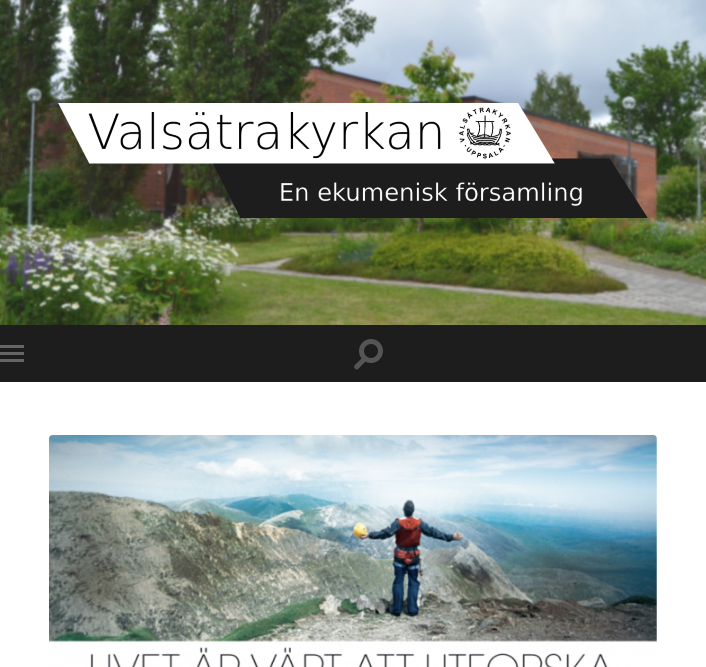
#include <cairo.h>
#include <math.h>
#include <stddef.h>

static cairo_t *ctx;

static void ink(unsigned color) {
    cairo_set_source_rgb(ctx, (color >> 16) / 255.0, (color >> 8 & 255) / 255.0, (color & 255) / 255.0);
}

static void block(double x, double y, double w, double h, unsigned color) {
    ink(color);
    cairo_rectangle(ctx, x, y, w, h);
    cairo_fill(ctx);
}

static void paste(const char *path, double x, double y, double w, double h) {
    cairo_surface_t *image = cairo_image_surface_create_from_png(path);
    cairo_save(ctx);
    cairo_set_source_surface(ctx, image, x, y);
    cairo_rectangle(ctx, x, y, w, h);
    cairo_fill(ctx);
    cairo_restore(ctx);
    cairo_surface_destroy(image);
}

int main(void) {
    cairo_surface_t *surface = cairo_image_surface_create(CAIRO_FORMAT_RGB24, 706, 667);
    ctx = cairo_create(surface);
    cairo_font_options_t *options = cairo_font_options_create();
    cairo_font_options_set_hint_metrics(options, CAIRO_HINT_METRICS_OFF);
    cairo_font_options_set_hint_style(options, CAIRO_HINT_STYLE_NONE);
    cairo_set_font_options(ctx, options);
    cairo_set_miter_limit(ctx, 4);
    ink(0xffffff);
    cairo_paint(ctx);
    paste("pic1.png", 0, 0, 706, 325);
    paste("pic2.png", 58, 103, 590, 115);
    block(0, 325, 706, 57, 0x1d1d1d);
    block(0, 345, 24, 3, 0x666666);
    block(0, 352, 24, 3, 0x666666);
    block(0, 359, 24, 3, 0x666666);
    ink(0x555555);
    cairo_arc(ctx, 371, 351, 12, 0, 2 * M_PI);
    cairo_fill(ctx);
    ink(0x1d1d1d);
    cairo_arc(ctx, 371, 351, 7, 0, 2 * M_PI);
    cairo_fill(ctx);
    ink(0x555555);
    cairo_new_path(ctx);
    cairo_move_to(ctx, 354.5, 365.5);
    cairo_line_to(ctx, 363, 357);
    cairo_line_to(ctx, 366.5, 360.5);
    cairo_line_to(ctx, 361, 366);
    cairo_curve_to(ctx, 359, 368, 357, 371.5, 354.5, 368);
    cairo_curve_to(ctx, 354, 367, 354, 366, 354.5, 365.5);
    cairo_close_path(ctx);
    cairo_fill(ctx);
    paste("pic3.png", 49, 435, 608, 232);
    cairo_surface_write_to_png(surface, "screenshot.png");
    cairo_font_options_destroy(options);
    cairo_destroy(ctx);
    cairo_surface_destroy(surface);
    return 0;
}
